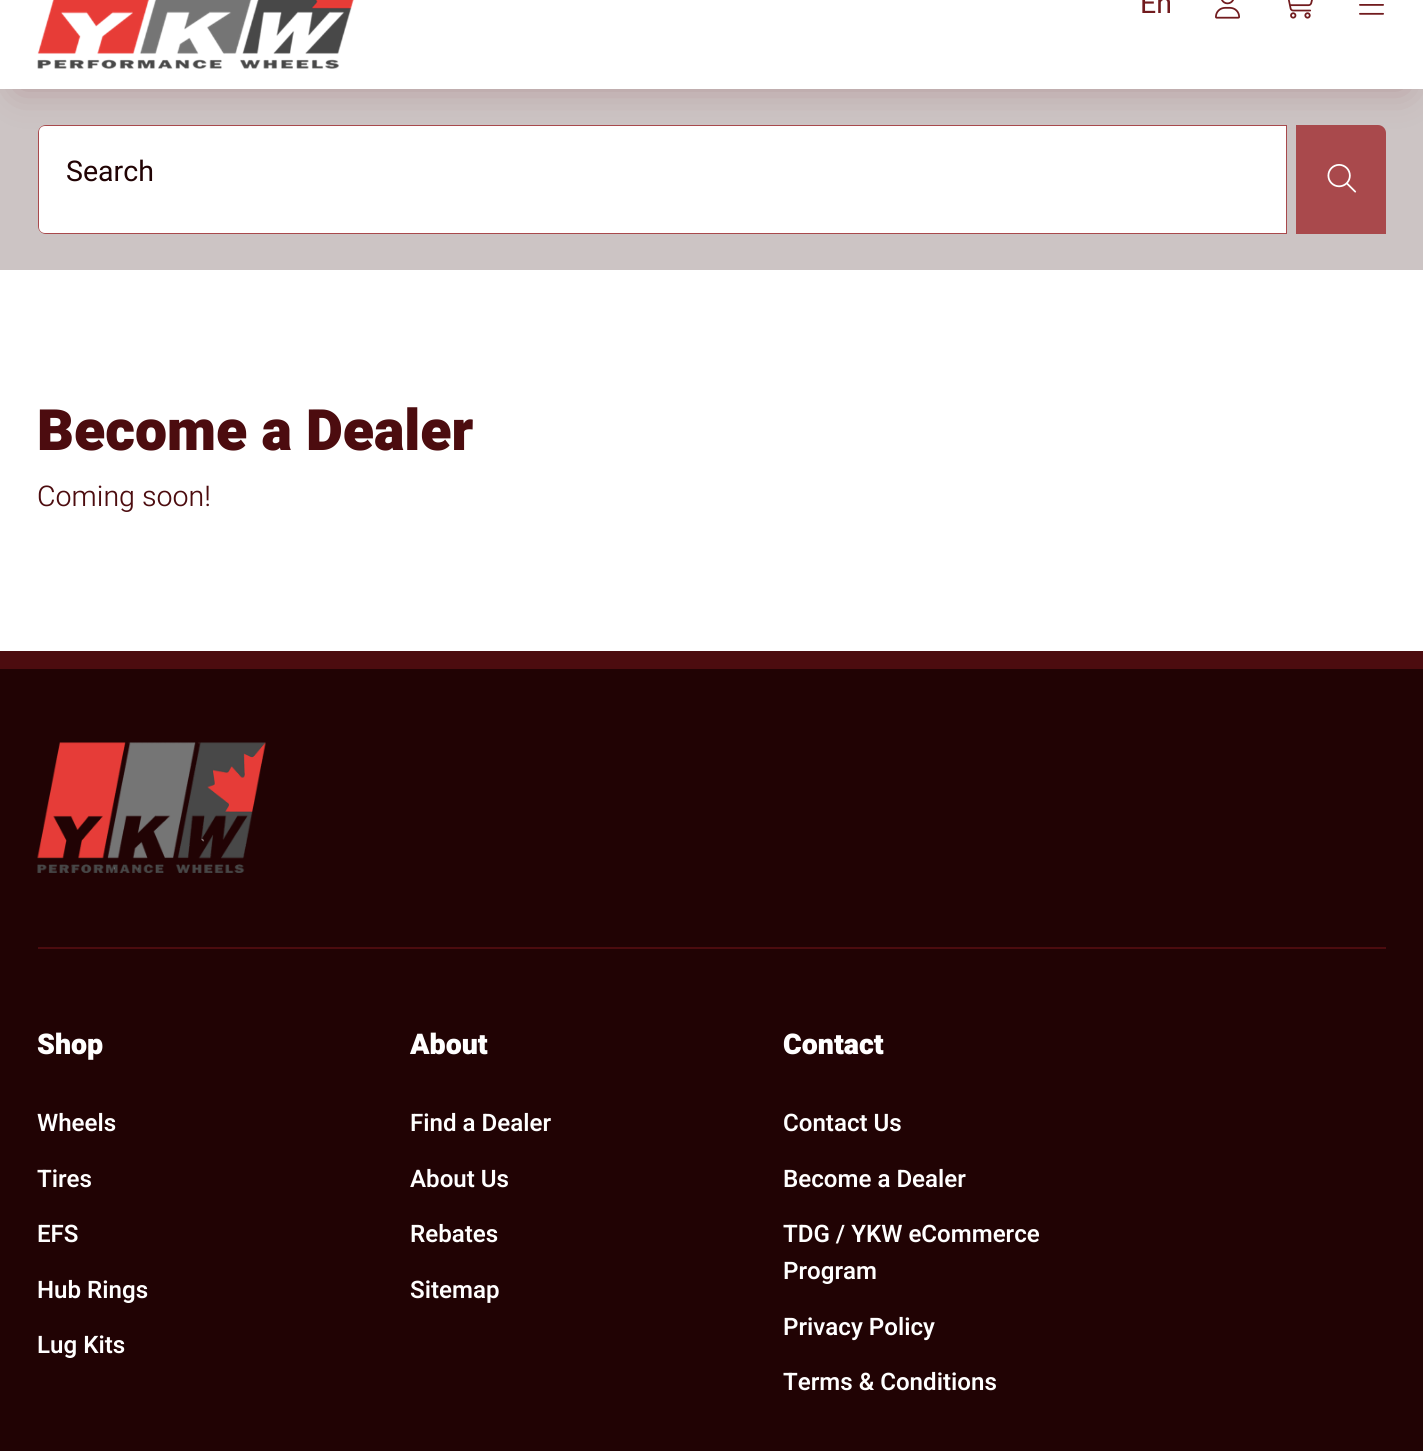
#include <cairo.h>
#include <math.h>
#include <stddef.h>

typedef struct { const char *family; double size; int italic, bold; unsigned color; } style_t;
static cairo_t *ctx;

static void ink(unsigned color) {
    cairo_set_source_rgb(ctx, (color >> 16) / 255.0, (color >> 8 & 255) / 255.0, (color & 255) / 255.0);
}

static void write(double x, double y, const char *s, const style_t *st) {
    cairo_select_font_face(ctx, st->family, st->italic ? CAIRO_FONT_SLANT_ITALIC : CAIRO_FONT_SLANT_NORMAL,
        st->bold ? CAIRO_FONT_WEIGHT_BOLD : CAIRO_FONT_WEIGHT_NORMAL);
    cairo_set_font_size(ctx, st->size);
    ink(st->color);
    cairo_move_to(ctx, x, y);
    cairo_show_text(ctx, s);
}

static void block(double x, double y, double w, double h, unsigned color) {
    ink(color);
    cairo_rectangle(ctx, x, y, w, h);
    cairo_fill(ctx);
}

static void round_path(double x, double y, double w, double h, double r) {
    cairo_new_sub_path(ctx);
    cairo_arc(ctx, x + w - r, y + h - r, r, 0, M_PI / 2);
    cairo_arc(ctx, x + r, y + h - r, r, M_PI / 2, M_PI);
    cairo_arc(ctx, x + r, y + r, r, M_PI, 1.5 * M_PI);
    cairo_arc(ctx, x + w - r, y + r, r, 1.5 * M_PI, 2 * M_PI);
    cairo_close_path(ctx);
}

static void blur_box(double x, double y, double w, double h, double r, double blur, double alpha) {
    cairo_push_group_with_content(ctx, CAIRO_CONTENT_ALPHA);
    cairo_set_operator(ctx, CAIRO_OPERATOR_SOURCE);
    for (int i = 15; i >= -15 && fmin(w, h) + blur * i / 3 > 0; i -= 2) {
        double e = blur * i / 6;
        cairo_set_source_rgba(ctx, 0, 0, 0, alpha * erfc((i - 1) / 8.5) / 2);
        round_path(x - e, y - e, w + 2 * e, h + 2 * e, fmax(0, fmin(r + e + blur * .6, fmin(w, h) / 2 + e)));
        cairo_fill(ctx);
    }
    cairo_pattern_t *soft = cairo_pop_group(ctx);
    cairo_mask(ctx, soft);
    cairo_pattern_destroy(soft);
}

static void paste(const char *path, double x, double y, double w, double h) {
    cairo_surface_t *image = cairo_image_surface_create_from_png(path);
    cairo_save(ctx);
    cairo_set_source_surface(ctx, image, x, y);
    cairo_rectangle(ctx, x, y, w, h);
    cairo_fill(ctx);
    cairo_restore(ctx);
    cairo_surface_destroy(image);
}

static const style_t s1 = {"Heebo", 28.5, 0, 0, 0x711b1e};
static const style_t s2 = {"Heebo", 28.5, 0, 0, 0x210304};
static const style_t s3 = {"Heebo Black", 57, 0, 0, 0x4c0c0f};
static const style_t s4 = {"Heebo Light", 28.5, 0, 0, 0x4c0c0f};
static const style_t s5 = {"Heebo Black", 28.5, 0, 0, 0xffffff};
static const style_t s6 = {"Heebo SemiBold", 24.1, 0, 0, 0xffffff};

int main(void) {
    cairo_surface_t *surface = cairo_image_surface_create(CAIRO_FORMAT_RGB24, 1423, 1451);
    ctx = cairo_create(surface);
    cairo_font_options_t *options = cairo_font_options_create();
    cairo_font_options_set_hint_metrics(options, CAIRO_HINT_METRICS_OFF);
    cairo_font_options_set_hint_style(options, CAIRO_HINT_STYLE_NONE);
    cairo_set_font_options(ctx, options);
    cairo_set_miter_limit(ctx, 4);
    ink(0xffffff);
    cairo_paint(ctx);
    block(0, 89, 1423, 181, 0xccc4c4);
    cairo_new_path(ctx);
    cairo_move_to(ctx, 46, 126);
    cairo_line_to(ctx, 1286, 126);
    cairo_line_to(ctx, 1286, 233);
    cairo_line_to(ctx, 46, 233);
    cairo_curve_to(ctx, 42, 233, 39, 230, 39, 226);
    cairo_line_to(ctx, 39, 133);
    cairo_curve_to(ctx, 39, 129, 42, 126, 46, 126);
    cairo_close_path(ctx);
    ink(0xa9494c);
    cairo_stroke(ctx);
    ink(0xffffff);
    cairo_new_path(ctx);
    cairo_move_to(ctx, 45, 126);
    cairo_line_to(ctx, 1286, 126);
    cairo_line_to(ctx, 1286, 233);
    cairo_line_to(ctx, 45, 233);
    cairo_curve_to(ctx, 41.5, 233, 39, 230.5, 39, 227);
    cairo_line_to(ctx, 39, 132);
    cairo_curve_to(ctx, 39, 128.5, 41.5, 126, 45, 126);
    cairo_close_path(ctx);
    cairo_fill(ctx);
    ink(0xa9494c);
    cairo_new_path(ctx);
    cairo_move_to(ctx, 1297.5, 126.5);
    cairo_line_to(ctx, 1378, 126.5);
    cairo_curve_to(ctx, 1381.5, 126.5, 1384.5, 129.5, 1384.5, 133);
    cairo_line_to(ctx, 1384.5, 232.5);
    cairo_line_to(ctx, 1297.5, 232.5);
    cairo_close_path(ctx);
    cairo_fill_preserve(ctx);
    cairo_set_line_width(ctx, 3);
    cairo_stroke(ctx);
    ink(0x711b1e);
    blur_box(18, -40, 1388, 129, 0, 18.5, 0.25);
    block(0, 0, 1423, 89, 0xffffff);
    paste("pic1.png", 37, 0, 317, 69);
    write(1140, 13, "En", &s1);
    paste("pic2.png", 1215, 0, 25, 19);
    paste("pic3.png", 1288, 0, 25, 19);
    paste("pic4.png", 1359, 4, 25, 11);
    write(66, 181, "Search", &s2);
    paste("pic5.png", 1327, 164, 30, 29);
    write(37, 450, "Become a Dealer", &s3);
    write(37, 506, "Coming soon!", &s4);
    block(0, 669, 1423, 782, 0x210304);
    block(0, 651, 1423, 18, 0x4c0c0f);
    block(38, 947, 1348, 2, 0x4c0c0f);
    paste("pic6.png", 37, 742, 229, 131);
    write(37, 1054, "Shop", &s5);
    write(37, 1131, "Wheels", &s6);
    write(37, 1187, "Tires", &s6);
    write(37, 1242, "EFS", &s6);
    write(37, 1298, "Hub Rings", &s6);
    write(37, 1353, "Lug Kits", &s6);
    write(410, 1054, "About", &s5);
    write(410, 1131, "Find a Dealer", &s6);
    write(410, 1187, "About Us", &s6);
    write(410, 1242, "Rebates", &s6);
    write(410, 1298, "Sitemap", &s6);
    write(783, 1054, "Contact", &s5);
    write(783, 1131, "Contact Us", &s6);
    write(783, 1187, "Become a Dealer", &s6);
    write(783, 1242, "TDG / YKW eCommerce", &s6);
    write(783, 1279, "Program", &s6);
    write(783, 1335, "Privacy Policy", &s6);
    write(783, 1390, "Terms & Conditions", &s6);
    cairo_surface_write_to_png(surface, "screenshot.png");
    cairo_font_options_destroy(options);
    cairo_destroy(ctx);
    cairo_surface_destroy(surface);
    return 0;
}
